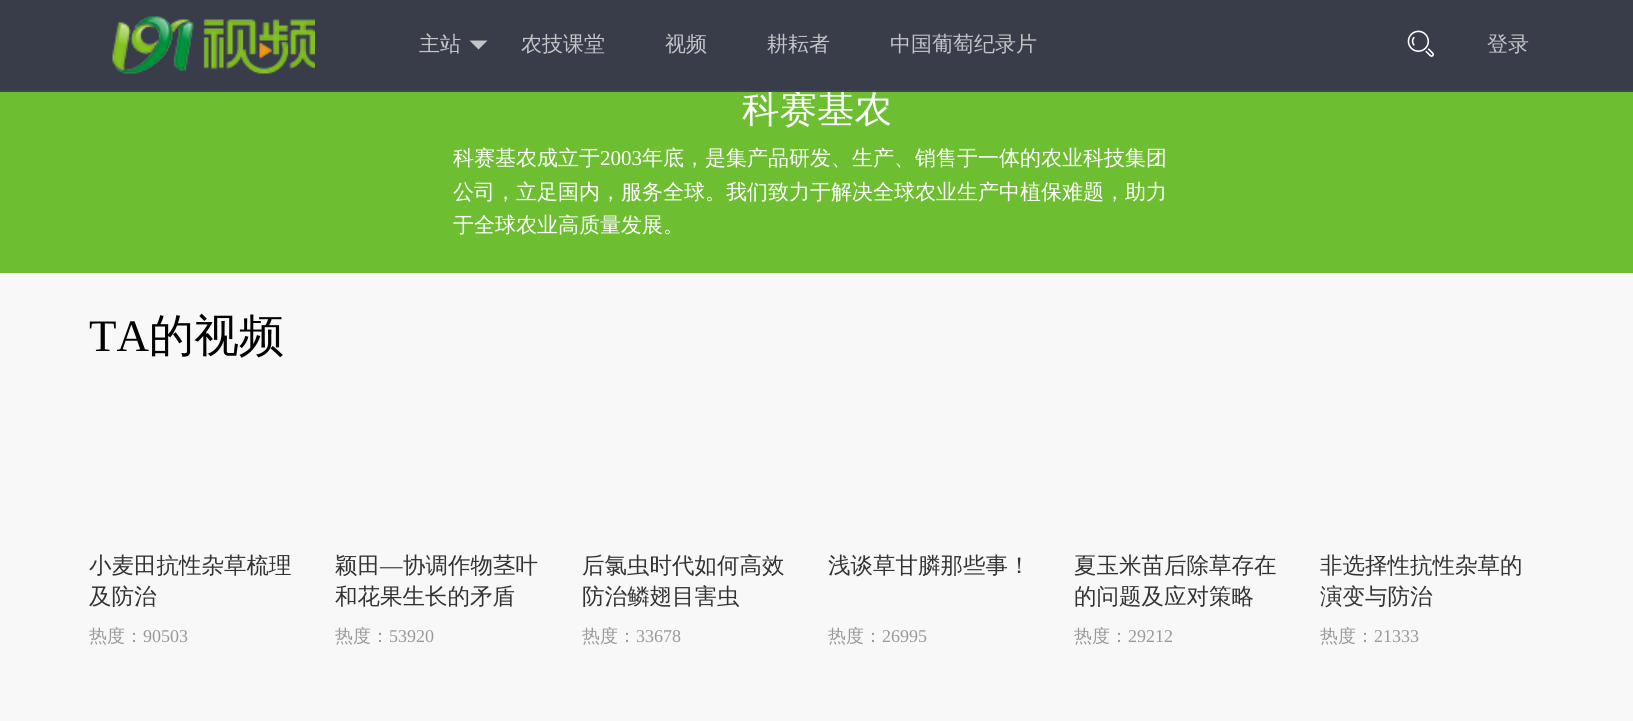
#include <cairo.h>
#include <math.h>
#include <stddef.h>

typedef struct { const char *family; double size; int italic, bold; unsigned color; } style_t;
static cairo_t *ctx;

static void ink(unsigned color) {
    cairo_set_source_rgb(ctx, (color >> 16) / 255.0, (color >> 8 & 255) / 255.0, (color & 255) / 255.0);
}

static void write(double x, double y, const char *s, const style_t *st) {
    cairo_select_font_face(ctx, st->family, st->italic ? CAIRO_FONT_SLANT_ITALIC : CAIRO_FONT_SLANT_NORMAL,
        st->bold ? CAIRO_FONT_WEIGHT_BOLD : CAIRO_FONT_WEIGHT_NORMAL);
    cairo_set_font_size(ctx, st->size);
    ink(st->color);
    cairo_move_to(ctx, x, y);
    cairo_show_text(ctx, s);
}

static void block(double x, double y, double w, double h, unsigned color) {
    ink(color);
    cairo_rectangle(ctx, x, y, w, h);
    cairo_fill(ctx);
}

static void paste(const char *path, double x, double y, double w, double h) {
    cairo_surface_t *image = cairo_image_surface_create_from_png(path);
    cairo_save(ctx);
    cairo_set_source_surface(ctx, image, x, y);
    cairo_rectangle(ctx, x, y, w, h);
    cairo_fill(ctx);
    cairo_restore(ctx);
    cairo_surface_destroy(image);
}

static const style_t s1 = {"WenQuanYi Zen Hei Medium", 37.5, 0, 0, 0xffffff};
static const style_t s2 = {"WenQuanYi Zen Hei Medium", 21, 0, 0, 0xc4c5c8};
static const style_t s3 = {"WenQuanYi Zen Hei Medium", 21, 0, 0, 0xffffff};
static const style_t s4 = {"Liberation Serif", 21, 0, 0, 0xffffff};
static const style_t s5 = {"Liberation Serif", 45, 0, 0, 0x000000};
static const style_t s6 = {"WenQuanYi Zen Hei Medium", 45, 0, 0, 0x000000};
static const style_t s7 = {"WenQuanYi Zen Hei Medium", 22.5, 0, 0, 0x333333};
static const style_t s8 = {"WenQuanYi Zen Hei Medium", 18, 0, 0, 0x999999};
static const style_t s9 = {"Liberation Serif", 18, 0, 0, 0x999999};
static const style_t s10 = {"Liberation Serif", 22.5, 0, 0, 0x333333};

int main(void) {
    cairo_surface_t *surface = cairo_image_surface_create(CAIRO_FORMAT_RGB24, 1633, 721);
    ctx = cairo_create(surface);
    cairo_font_options_t *options = cairo_font_options_create();
    cairo_font_options_set_hint_metrics(options, CAIRO_HINT_METRICS_OFF);
    cairo_font_options_set_hint_style(options, CAIRO_HINT_STYLE_NONE);
    cairo_set_font_options(ctx, options);
    cairo_set_miter_limit(ctx, 4);
    ink(0xf8f8f8);
    cairo_paint(ctx);
    block(0, 0, 1633, 90, 0x393d49);
    block(0, 92, 1633, 181, 0x6ebe32);
    write(742, 122, "科赛基农", &s1);
    block(0, 90, 1633, 2, 0x404553);
    paste("pic1.png", 112, 16, 203, 58);
    write(419, 51, "主站", &s2);
    cairo_new_path(ctx);
    cairo_move_to(ctx, 469.5, 40.5);
    cairo_line_to(ctx, 487.5, 40.5);
    cairo_line_to(ctx, 478.5, 49.5);
    cairo_close_path(ctx);
    cairo_fill(ctx);
    write(521, 51, "农技课堂", &s2);
    write(665, 51, "视频", &s2);
    write(767, 51, "耕耘者", &s2);
    write(890, 51, "中国葡萄纪录片", &s2);
    paste("pic2.png", 1407, 30, 27, 27);
    write(1487, 51, "登录", &s2);
    write(453, 165, "科赛基农成立于", &s3);
    write(600, 165, "2003", &s4);
    write(642, 165, "年底，是集产品研发、生产、销售于一体的农业科技集团", &s3);
    write(453, 199, "公司，立足国内，服务全球。我们致力于解决全球农业生产中植保难题，助力", &s3);
    write(453, 232, "于全球农业高质量发展。", &s3);
    write(89, 351, "TA", &s5);
    write(149, 351, "的视频", &s6);
    write(89, 573, "小麦田抗性杂草梳理", &s7);
    write(89, 604, "及防治", &s7);
    write(89, 642, "热度：", &s8);
    write(143, 642, "90503", &s9);
    write(335, 573, "颖田", &s7);
    write(380, 573, "—", &s10);
    write(403, 573, "协调作物茎叶", &s7);
    write(335, 604, "和花果生长的矛盾", &s7);
    write(335, 642, "热度：", &s8);
    write(389, 642, "53920", &s9);
    write(582, 573, "后氯虫时代如何高效", &s7);
    write(582, 604, "防治鳞翅目害虫", &s7);
    write(582, 642, "热度：", &s8);
    write(636, 642, "33678", &s9);
    write(828, 573, "浅谈草甘膦那些事！", &s7);
    write(828, 642, "热度：", &s8);
    write(882, 642, "26995", &s9);
    write(1074, 573, "夏玉米苗后除草存在", &s7);
    write(1074, 604, "的问题及应对策略", &s7);
    write(1074, 642, "热度：", &s8);
    write(1128, 642, "29212", &s9);
    write(1320, 573, "非选择性抗性杂草的", &s7);
    write(1320, 604, "演变与防治", &s7);
    write(1320, 642, "热度：", &s8);
    write(1374, 642, "21333", &s9);
    cairo_surface_write_to_png(surface, "screenshot.png");
    cairo_font_options_destroy(options);
    cairo_destroy(ctx);
    cairo_surface_destroy(surface);
    return 0;
}
